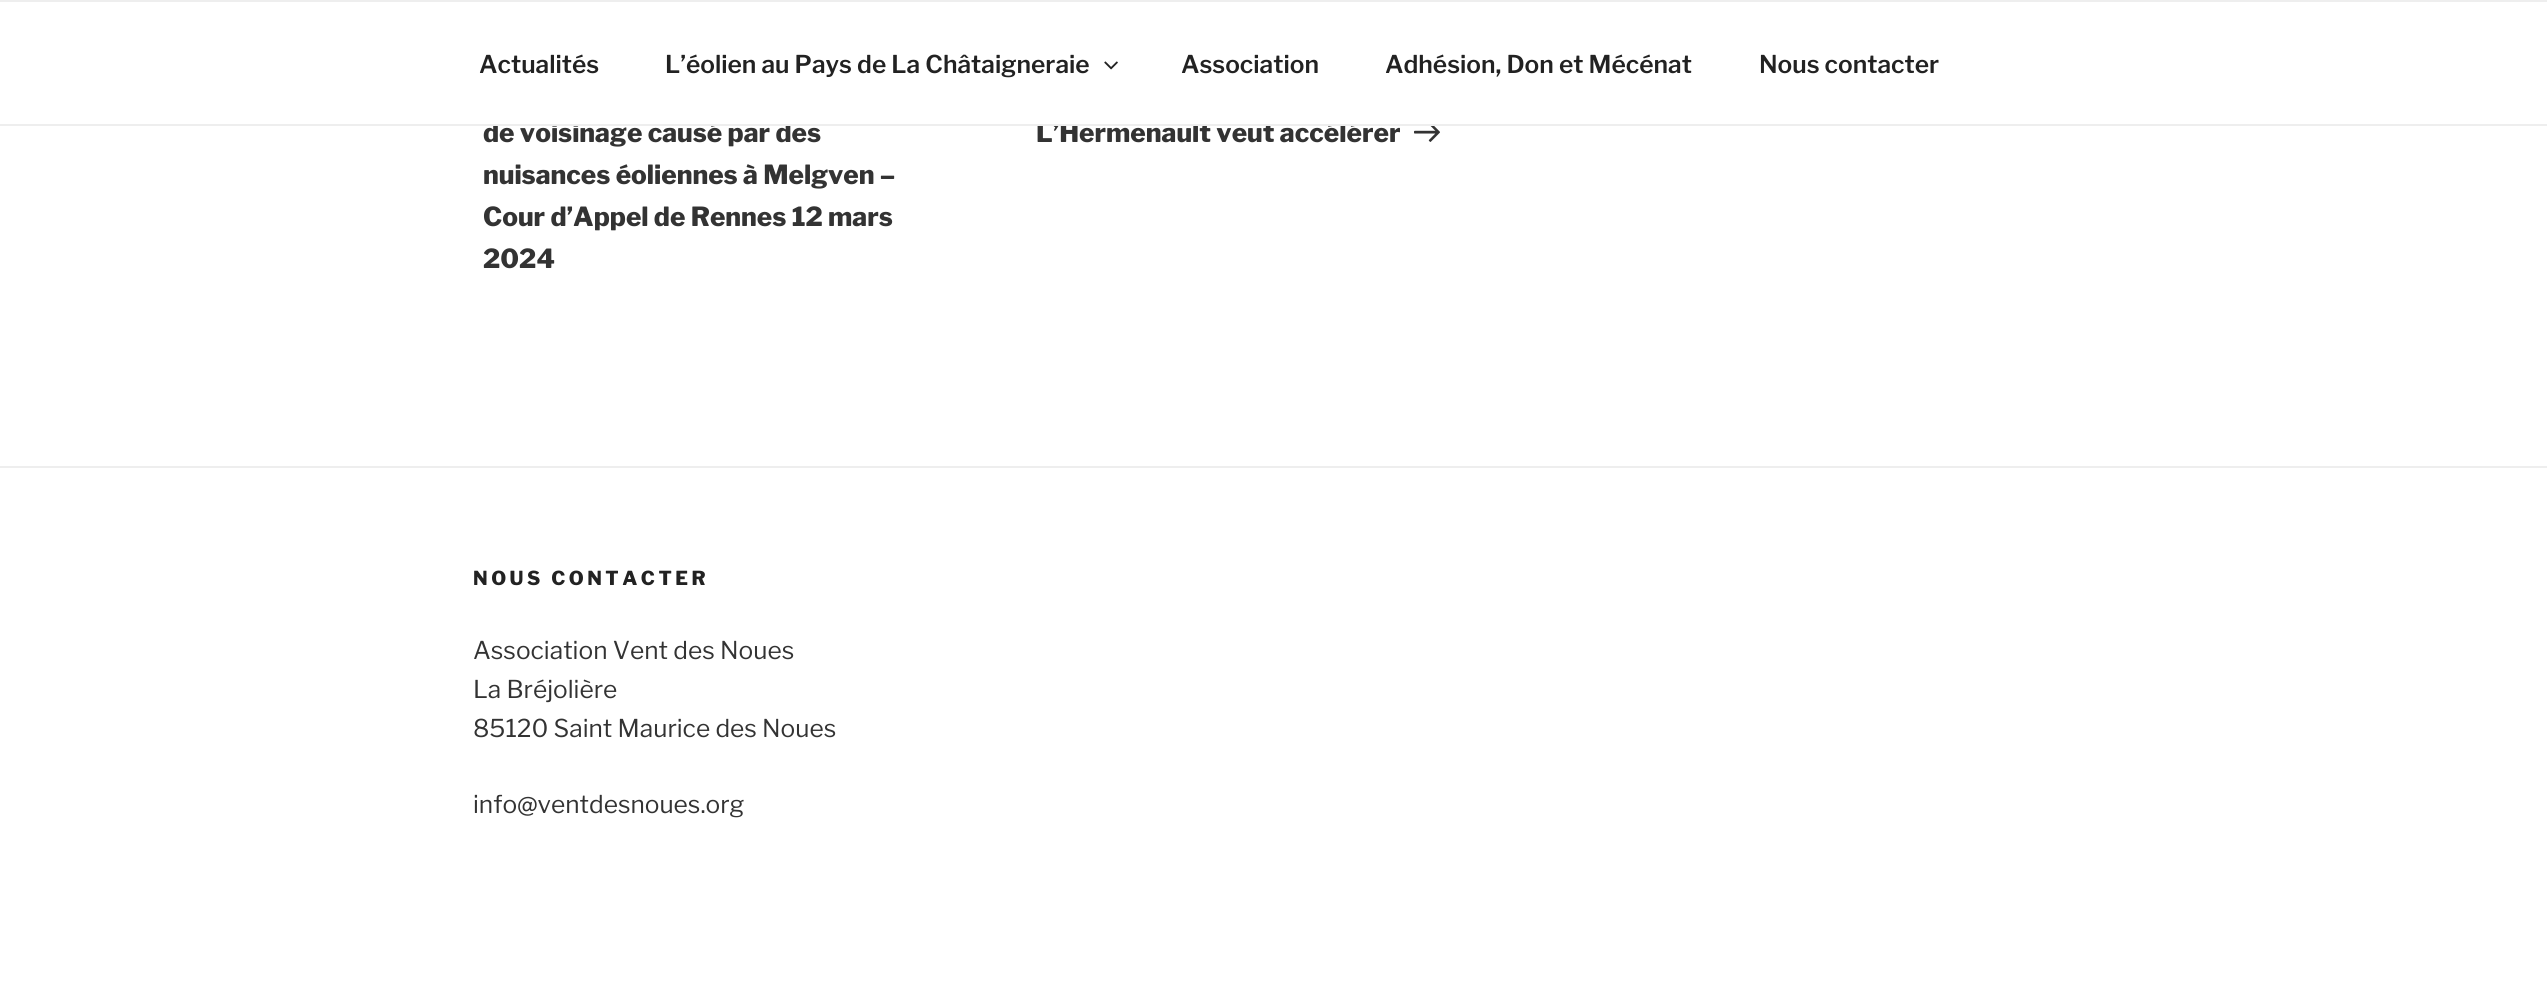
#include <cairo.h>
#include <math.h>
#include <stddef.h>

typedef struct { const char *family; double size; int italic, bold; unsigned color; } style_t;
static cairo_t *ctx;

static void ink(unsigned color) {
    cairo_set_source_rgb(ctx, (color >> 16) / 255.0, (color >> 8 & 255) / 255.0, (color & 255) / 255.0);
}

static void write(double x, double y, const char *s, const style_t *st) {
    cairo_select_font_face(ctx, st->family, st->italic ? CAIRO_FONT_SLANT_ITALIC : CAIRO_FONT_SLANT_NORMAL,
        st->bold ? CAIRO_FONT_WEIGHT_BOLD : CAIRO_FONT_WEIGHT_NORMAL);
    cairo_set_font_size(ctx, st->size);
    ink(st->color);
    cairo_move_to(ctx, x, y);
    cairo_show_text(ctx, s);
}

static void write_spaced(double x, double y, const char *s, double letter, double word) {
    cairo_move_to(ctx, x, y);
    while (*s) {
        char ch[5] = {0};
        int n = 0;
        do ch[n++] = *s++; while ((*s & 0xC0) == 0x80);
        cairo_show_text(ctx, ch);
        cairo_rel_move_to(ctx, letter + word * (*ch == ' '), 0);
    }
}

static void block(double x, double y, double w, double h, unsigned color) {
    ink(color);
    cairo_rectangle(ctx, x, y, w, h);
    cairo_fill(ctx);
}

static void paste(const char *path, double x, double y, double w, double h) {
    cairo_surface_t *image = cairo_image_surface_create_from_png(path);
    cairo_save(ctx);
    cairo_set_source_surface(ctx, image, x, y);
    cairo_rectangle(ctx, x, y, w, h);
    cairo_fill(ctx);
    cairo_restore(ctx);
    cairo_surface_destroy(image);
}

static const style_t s1 = {"Libre Franklin Thin", 26.25, 0, 0, 0x333333};
static const style_t s2 = {"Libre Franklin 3 Thin", 24.5, 0, 0, 0x222222};
static const style_t s3 = {"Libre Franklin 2 Thin", 24.5, 0, 0, 0x333333};

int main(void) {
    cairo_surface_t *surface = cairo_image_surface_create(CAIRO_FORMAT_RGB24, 2547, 983);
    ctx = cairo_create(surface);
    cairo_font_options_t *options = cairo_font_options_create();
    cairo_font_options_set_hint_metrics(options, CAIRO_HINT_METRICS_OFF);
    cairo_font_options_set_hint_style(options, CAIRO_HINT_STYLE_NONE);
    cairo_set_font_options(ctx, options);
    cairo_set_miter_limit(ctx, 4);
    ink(0xffffff);
    cairo_paint(ctx);
    write(483, 142, "de voisinage causé par des", &s1);
    write(1036, 142, "L’Hermenault veut accélérer", &s1);
    block(493, 122, 865, 2, 0xffffff);
    block(0, 0, 2547, 2, 0xeeeeee);
    block(0, 124, 2547, 2, 0xeeeeee);
    write(479, 73, "Actualités", &s2);
    write(665, 73, "L’éolien au Pays de La Châtaigneraie", &s2);
    paste("pic1.png", 1104, 61, 14, 9);
    write(1181, 73, "Association", &s2);
    write(1385, 73, "Adhésion, Don et Mécénat", &s2);
    write(1759, 73, "Nous contacter", &s2);
    write(483, 184, "nuisances éoliennes à Melgven –", &s1);
    write(483, 226, "Cour d’Appel de Rennes 12 mars", &s1);
    write(483, 268, "2024", &s1);
    paste("pic2.png", 1414, 126, 26, 16);
    block(0, 466, 2547, 2, 0xeeeeee);
    cairo_set_font_size(ctx, 19.25);
    ink(0x222222);
    write_spaced(473, 585, "NOUS CONTACTER", 3.5, 0);
    write(473, 659, "Association Vent des Noues", &s3);
    write(473, 698, "La Bréjolière", &s3);
    write(473, 737, "85120 Saint Maurice des Noues", &s3);
    write(473, 813, "info@ventdesnoues.org", &s3);
    cairo_surface_write_to_png(surface, "screenshot.png");
    cairo_font_options_destroy(options);
    cairo_destroy(ctx);
    cairo_surface_destroy(surface);
    return 0;
}
